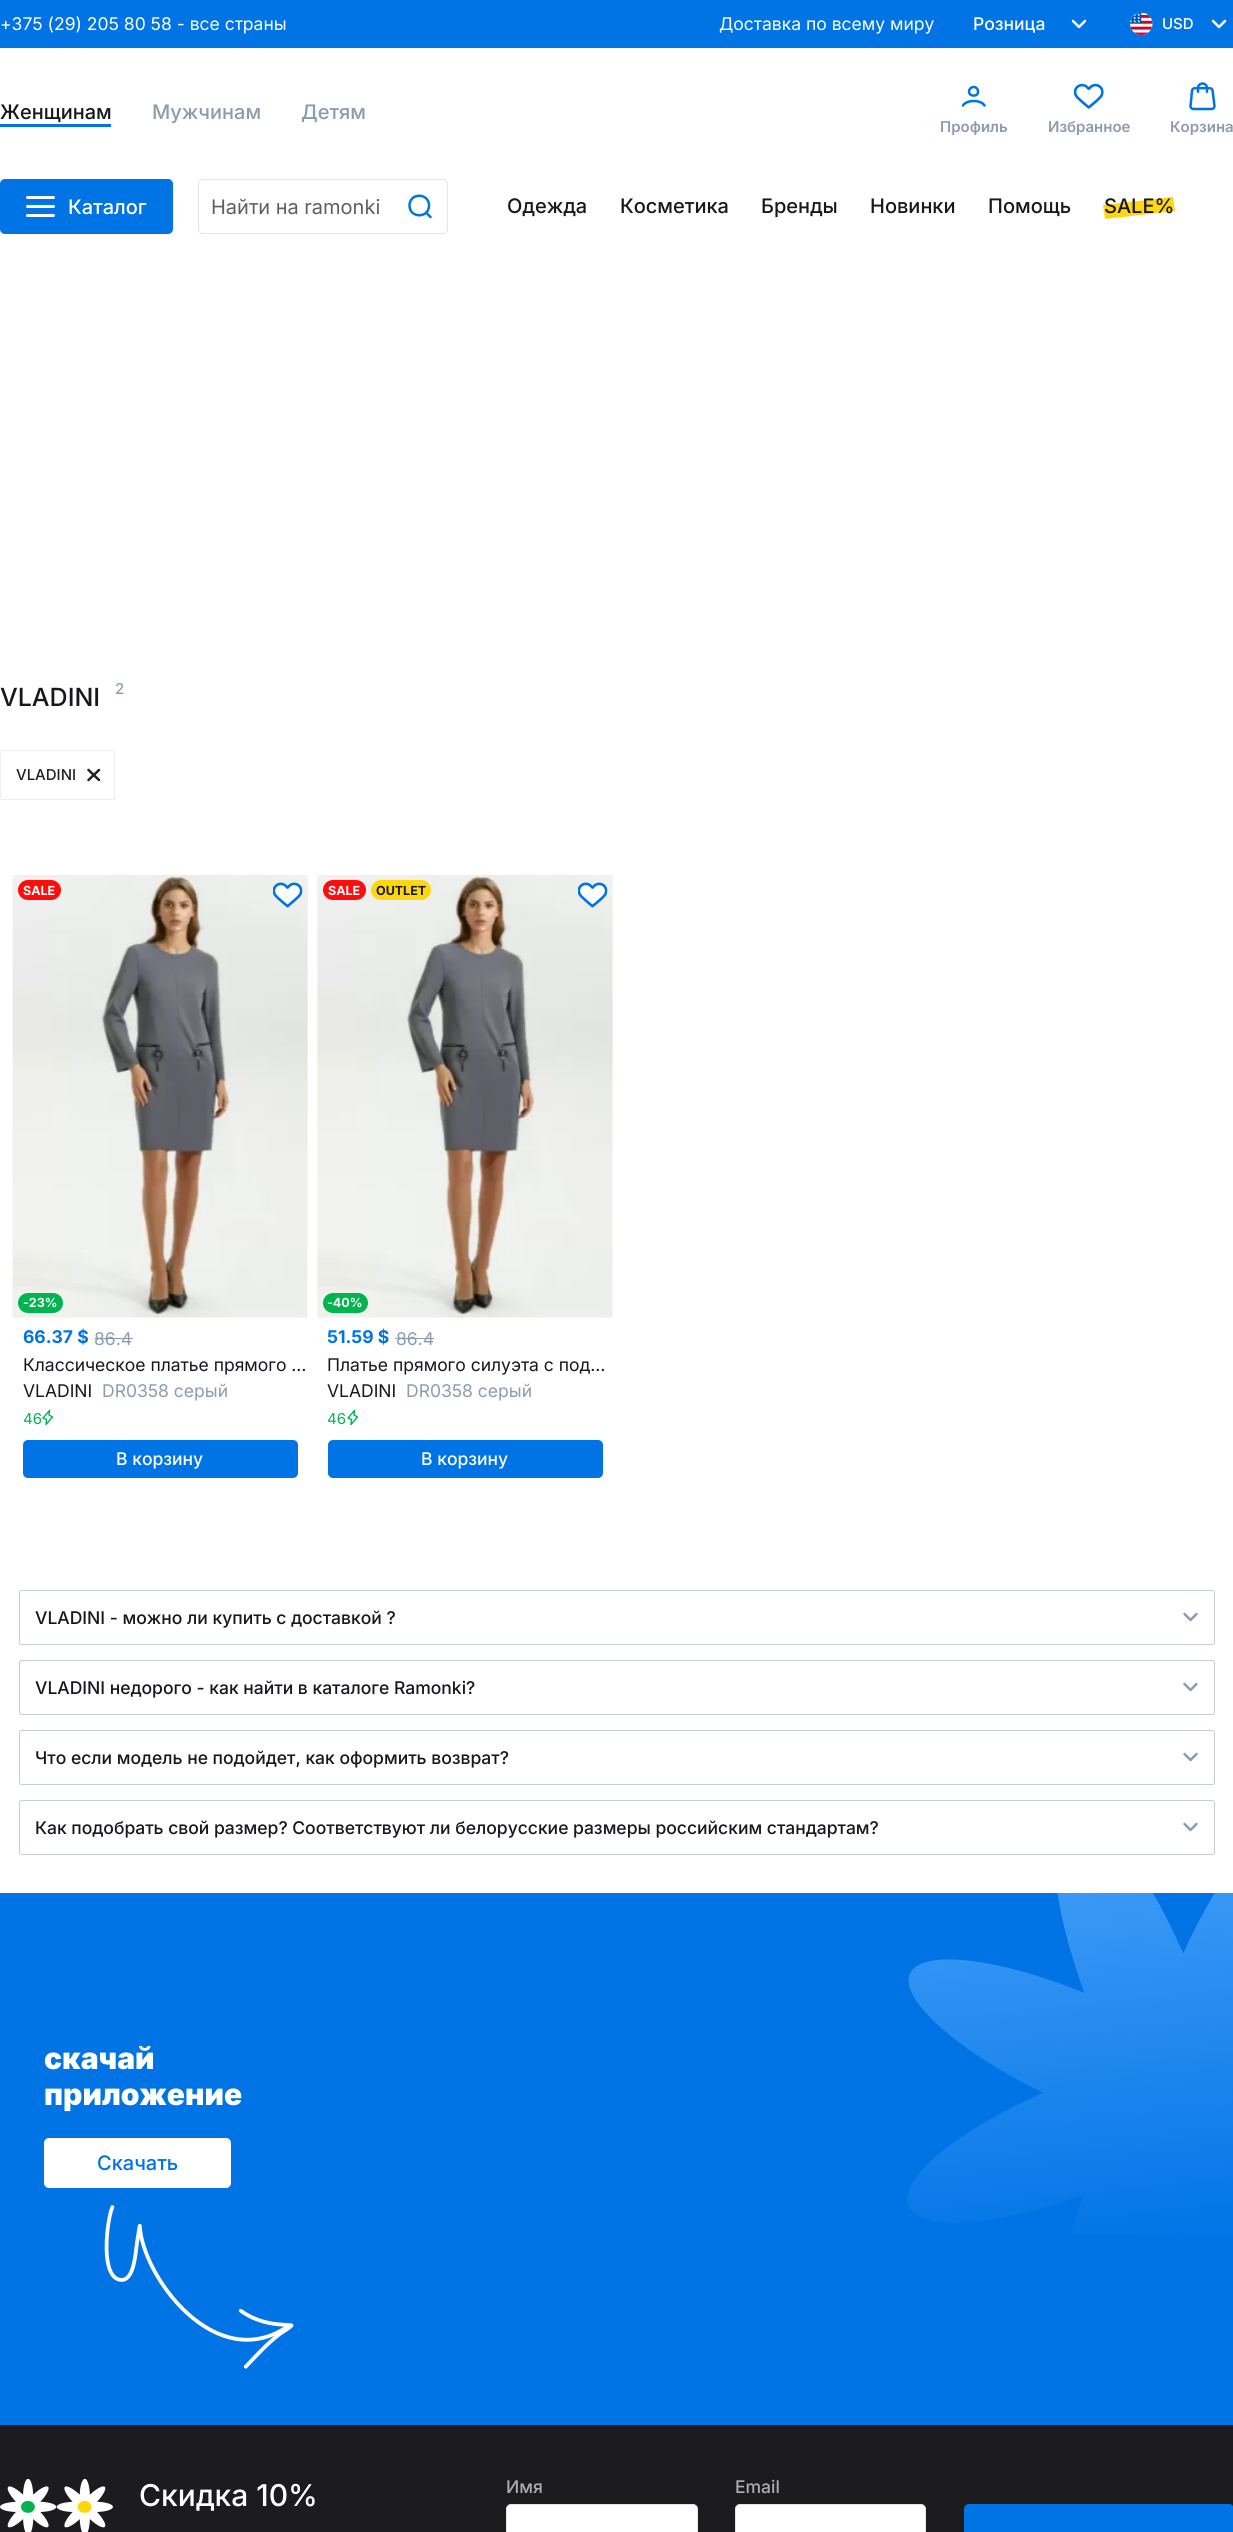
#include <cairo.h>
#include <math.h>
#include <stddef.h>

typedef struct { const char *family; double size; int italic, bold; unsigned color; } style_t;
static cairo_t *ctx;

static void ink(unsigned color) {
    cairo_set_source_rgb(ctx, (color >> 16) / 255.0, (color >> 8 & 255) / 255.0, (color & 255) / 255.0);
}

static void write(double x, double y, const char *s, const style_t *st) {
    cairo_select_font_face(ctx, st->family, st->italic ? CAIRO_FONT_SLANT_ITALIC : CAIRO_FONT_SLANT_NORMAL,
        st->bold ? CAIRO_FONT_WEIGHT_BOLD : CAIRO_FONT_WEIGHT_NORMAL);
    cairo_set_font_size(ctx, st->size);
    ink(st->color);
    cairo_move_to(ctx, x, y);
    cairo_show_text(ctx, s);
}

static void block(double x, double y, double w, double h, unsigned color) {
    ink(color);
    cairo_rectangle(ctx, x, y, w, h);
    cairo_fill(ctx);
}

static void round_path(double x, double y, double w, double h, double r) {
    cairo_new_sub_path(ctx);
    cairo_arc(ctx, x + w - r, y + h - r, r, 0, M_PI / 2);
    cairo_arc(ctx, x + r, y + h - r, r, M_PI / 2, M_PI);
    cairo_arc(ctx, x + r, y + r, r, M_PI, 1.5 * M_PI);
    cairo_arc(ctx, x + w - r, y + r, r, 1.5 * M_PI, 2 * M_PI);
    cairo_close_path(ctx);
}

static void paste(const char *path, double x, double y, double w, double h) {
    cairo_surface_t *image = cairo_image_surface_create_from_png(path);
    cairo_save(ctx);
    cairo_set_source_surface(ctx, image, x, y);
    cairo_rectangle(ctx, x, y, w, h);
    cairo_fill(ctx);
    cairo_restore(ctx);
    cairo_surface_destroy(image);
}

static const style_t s1 = {"Inter", 17.5, 0, 0, 0xffffff};
static const style_t s2 = {"Inter Medium", 17.5, 0, 0, 0xffffff};
static const style_t s3 = {"Inter Medium", 15, 0, 0, 0xffffff};
static const style_t s4 = {"Inter Medium", 20, 0, 0, 0x18181c};
static const style_t s5 = {"Inter Medium", 20, 0, 0, 0x8d9cad};
static const style_t s6 = {"Inter SemiBold", 15, 0, 0, 0x8d9cad};
static const style_t s7 = {"Inter Medium", 20, 0, 0, 0xffffff};
static const style_t s8 = {"Inter", 20, 0, 0, 0x5f5f61};
static const style_t s9 = {"Inter Medium", 25, 0, 0, 0x18181c};
static const style_t s10 = {"Inter Medium", 15, 0, 0, 0x8d9cad};
static const style_t s11 = {"Inter Medium", 15, 0, 0, 0x222124};
static const style_t s12 = {"Inter", 12.5, 0, 1, 0xffffff};
static const style_t s13 = {"Inter", 17.5, 0, 1, 0x0073e5};
static const style_t s14 = {"Inter", 17.5, 0, 0, 0x8d9cad};
static const style_t s15 = {"Inter", 17.5, 0, 0, 0x18181c};
static const style_t s16 = {"Inter", 15, 0, 0, 0x00b54f};
static const style_t s17 = {"Inter", 12.5, 0, 1, 0x18181c};
static const style_t s18 = {"Inter Medium", 17.5, 0, 0, 0x18181c};
static const style_t s19 = {"Inter Black", 30, 0, 0, 0xffffff};
static const style_t s20 = {"Inter Medium", 20, 0, 0, 0x0073e5};
static const style_t s21 = {"Inter Medium", 30, 0, 0, 0xffffff};
static const style_t s22 = {"Inter Medium", 17.5, 0, 0, 0xaeaeae};

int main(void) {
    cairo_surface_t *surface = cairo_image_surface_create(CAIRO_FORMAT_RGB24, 1233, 2532);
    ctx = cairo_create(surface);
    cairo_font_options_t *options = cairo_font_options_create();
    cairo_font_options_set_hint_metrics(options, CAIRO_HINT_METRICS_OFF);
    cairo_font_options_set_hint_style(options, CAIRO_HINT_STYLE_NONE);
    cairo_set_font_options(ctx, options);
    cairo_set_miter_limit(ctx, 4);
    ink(0xffffff);
    cairo_paint(ctx);
    block(0, 0, 1233, 48, 0x0073e5);
    write(0, 30, "+375 (29) 205 80 58 - все страны", &s1);
    write(719, 30, "Доставка по всему миру", &s1);
    write(973, 30, "Розница", &s2);
    cairo_new_path(ctx);
    cairo_move_to(ctx, 1085, 21);
    cairo_line_to(ctx, 1079, 27);
    cairo_line_to(ctx, 1073, 21);
    cairo_set_line_width(ctx, 2.5);
    cairo_set_line_cap(ctx, CAIRO_LINE_CAP_ROUND);
    cairo_set_line_join(ctx, CAIRO_LINE_JOIN_ROUND);
    cairo_stroke(ctx);
    paste("pic1.png", 1130, 13, 23, 22);
    write(1162, 29, "USD", &s3);
    cairo_new_path(ctx);
    cairo_move_to(ctx, 1225, 21);
    cairo_line_to(ctx, 1219, 27);
    cairo_line_to(ctx, 1213, 21);
    cairo_stroke(ctx);
    block(0, 124, 111, 3, 0x0073e5);
    write(0, 119, "Женщинам", &s4);
    write(152, 119, "Мужчинам", &s5);
    write(301, 119, "Детям", &s5);
    cairo_new_path(ctx);
    cairo_move_to(ctx, 963, 105.5);
    cairo_curve_to(ctx, 966.5, 99.5, 981, 99.5, 984.5, 105.5);
    cairo_move_to(ctx, 978, 91.5);
    cairo_curve_to(ctx, 978.5, 97, 969, 97, 969, 91.5);
    cairo_curve_to(ctx, 969.5, 85.5, 978, 85.5, 978, 91.5);
    cairo_close_path(ctx);
    ink(0x0073e5);
    cairo_set_line_join(ctx, CAIRO_LINE_JOIN_MITER);
    cairo_stroke(ctx);
    write(940, 132, "Профиль", &s6);
    paste("pic2.png", 1074, 83, 30, 26);
    write(1048, 132, "Избранное", &s6);
    paste("pic3.png", 1189, 82, 27, 29);
    write(1170, 132, "Корзина", &s6);
    ink(0x0073e5);
    round_path(0, 179, 173, 55, 5);
    cairo_fill(ctx);
    ink(0xffffff);
    round_path(26, 196, 29, 3, 1.5);
    cairo_fill(ctx);
    round_path(26, 205, 29, 3, 1.5);
    cairo_fill(ctx);
    round_path(26, 214, 29, 3, 1.5);
    cairo_fill(ctx);
    write(68, 214, "Каталог", &s7);
    round_path(198.5, 179.5, 249, 54, 4.5);
    ink(0xe5e5e5);
    cairo_set_line_width(ctx, 1);
    cairo_set_line_cap(ctx, CAIRO_LINE_CAP_BUTT);
    cairo_stroke(ctx);
    write(211, 214, "Найти на ramonki", &s8);
    cairo_new_path(ctx);
    cairo_move_to(ctx, 426, 212.5);
    cairo_line_to(ctx, 430.5, 217);
    cairo_move_to(ctx, 429, 205.5);
    cairo_curve_to(ctx, 429, 218.5, 409.5, 218.5, 409.5, 205.5);
    cairo_curve_to(ctx, 409.5, 192.5, 429, 192.5, 429, 205.5);
    cairo_close_path(ctx);
    ink(0x0074e5);
    cairo_set_line_width(ctx, 2.5);
    cairo_set_line_cap(ctx, CAIRO_LINE_CAP_ROUND);
    cairo_stroke(ctx);
    write(507, 213, "Одежда", &s4);
    write(620, 213, "Косметика", &s4);
    write(761, 213, "Бренды", &s4);
    write(870, 213, "Новинки", &s4);
    write(988, 213, "Помощь", &s4);
    ink(0xffd710);
    cairo_new_path(ctx);
    cairo_move_to(ctx, 1103, 205);
    cairo_line_to(ctx, 1173, 197);
    cairo_line_to(ctx, 1175, 211);
    cairo_line_to(ctx, 1105, 219);
    cairo_close_path(ctx);
    cairo_fill(ctx);
    write(1104, 213, "SALE%", &s4);
    write(0, 706, "VLADINI", &s9);
    write(115, 694, "2", &s10);
    round_path(0.5, 750.5, 114, 49, 2);
    ink(0xeceff1);
    cairo_set_line_width(ctx, 1);
    cairo_set_line_cap(ctx, CAIRO_LINE_CAP_BUTT);
    cairo_stroke(ctx);
    write(16, 780, "VLADINI", &s11);
    cairo_new_path(ctx);
    cairo_move_to(ctx, 99, 770);
    cairo_line_to(ctx, 88.5, 780);
    cairo_move_to(ctx, 99, 780);
    cairo_line_to(ctx, 88.5, 770);
    cairo_set_line_width(ctx, 2.5);
    cairo_set_line_cap(ctx, CAIRO_LINE_CAP_ROUND);
    cairo_stroke(ctx);
    paste("pic4.png", 12, 875, 296, 443);
    paste("pic5.png", 307, 875, 1, 369);
    ink(0xff0c0c);
    round_path(18, 880, 43, 20, 10);
    cairo_fill(ctx);
    write(23, 895, "SALE", &s12);
    ink(0x00b54f);
    round_path(18, 1293, 45, 20, 10);
    cairo_fill(ctx);
    write(23, 1307, "-23%", &s12);
    paste("pic6.png", 273, 882, 30, 26);
    write(23, 1343, "66.37 $", &s13);
    write(94, 1345, "86.4", &s14);
    block(95, 1338, 38, 1, 0x8d9cad);
    write(23, 1371, "Классическое платье прямого …", &s15);
    write(23, 1397, "VLADINI", &s15);
    write(102, 1397, "DR0358 серый", &s14);
    write(23, 1424, "46", &s16);
    cairo_new_path(ctx);
    cairo_move_to(ctx, 46.5, 1419.5);
    cairo_line_to(ctx, 46, 1424.5);
    cairo_line_to(ctx, 52.5, 1417);
    cairo_line_to(ctx, 49, 1415);
    cairo_line_to(ctx, 49.5, 1410.5);
    cairo_line_to(ctx, 43, 1418);
    cairo_close_path(ctx);
    cairo_set_line_width(ctx, 1.4);
    cairo_set_line_join(ctx, CAIRO_LINE_JOIN_ROUND);
    cairo_stroke(ctx);
    ink(0x0073e5);
    round_path(23, 1440, 275, 38, 5);
    cairo_fill(ctx);
    write(116, 1465, "В корзину", &s2);
    paste("pic7.png", 317, 875, 296, 443);
    paste("pic8.png", 612, 875, 1, 377);
    ink(0xff0c0c);
    round_path(323, 880, 43, 20, 10);
    cairo_fill(ctx);
    write(328, 895, "SALE", &s12);
    ink(0xffd710);
    round_path(371, 880, 60, 20, 10);
    cairo_fill(ctx);
    write(376, 895, "OUTLET", &s17);
    ink(0x00b54f);
    round_path(323, 1293, 45, 20, 10);
    cairo_fill(ctx);
    write(327, 1307, "-40%", &s12);
    paste("pic9.png", 578, 882, 30, 26);
    write(327, 1343, "51.59 $", &s13);
    write(396, 1345, "86.4", &s14);
    block(395, 1338, 39, 1, 0x8d9cad);
    write(327, 1371, "Платье прямого силуэта с под…", &s15);
    write(327, 1397, "VLADINI", &s15);
    write(406, 1397, "DR0358 серый", &s14);
    write(327, 1424, "46", &s16);
    cairo_new_path(ctx);
    cairo_move_to(ctx, 351.5, 1419.5);
    cairo_line_to(ctx, 351, 1424.5);
    cairo_line_to(ctx, 357.5, 1417);
    cairo_line_to(ctx, 354, 1415);
    cairo_line_to(ctx, 354.5, 1410.5);
    cairo_line_to(ctx, 348, 1418);
    cairo_close_path(ctx);
    cairo_stroke(ctx);
    ink(0x0073e5);
    round_path(328, 1440, 275, 38, 5);
    cairo_fill(ctx);
    write(421, 1465, "В корзину", &s2);
    round_path(19.5, 1590.5, 1195, 54, 2);
    ink(0xc6ced6);
    cairo_set_line_width(ctx, 1);
    cairo_set_line_cap(ctx, CAIRO_LINE_CAP_BUTT);
    cairo_set_line_join(ctx, CAIRO_LINE_JOIN_MITER);
    cairo_stroke(ctx);
    write(35, 1624, "VLADINI - можно ли купить c доставкой ?", &s18);
    cairo_new_path(ctx);
    cairo_move_to(ctx, 1196.5, 1614);
    cairo_line_to(ctx, 1190.5, 1620);
    cairo_line_to(ctx, 1184.5, 1614);
    ink(0x8d9cad);
    cairo_set_line_width(ctx, 2.5);
    cairo_set_line_cap(ctx, CAIRO_LINE_CAP_ROUND);
    cairo_set_line_join(ctx, CAIRO_LINE_JOIN_ROUND);
    cairo_stroke(ctx);
    round_path(19.5, 1660.5, 1195, 54, 2);
    ink(0xc6ced6);
    cairo_set_line_width(ctx, 1);
    cairo_set_line_cap(ctx, CAIRO_LINE_CAP_BUTT);
    cairo_set_line_join(ctx, CAIRO_LINE_JOIN_MITER);
    cairo_stroke(ctx);
    write(35, 1694, "VLADINI недорого - как найти в каталоге Ramonki?", &s18);
    cairo_new_path(ctx);
    cairo_move_to(ctx, 1196.5, 1684);
    cairo_line_to(ctx, 1190.5, 1690);
    cairo_line_to(ctx, 1184.5, 1684);
    ink(0x8d9cad);
    cairo_set_line_width(ctx, 2.5);
    cairo_set_line_cap(ctx, CAIRO_LINE_CAP_ROUND);
    cairo_set_line_join(ctx, CAIRO_LINE_JOIN_ROUND);
    cairo_stroke(ctx);
    round_path(19.5, 1730.5, 1195, 54, 2);
    ink(0xc6ced6);
    cairo_set_line_width(ctx, 1);
    cairo_set_line_cap(ctx, CAIRO_LINE_CAP_BUTT);
    cairo_set_line_join(ctx, CAIRO_LINE_JOIN_MITER);
    cairo_stroke(ctx);
    write(35, 1764, "Что если модель не подойдет, как оформить возврат?", &s18);
    cairo_new_path(ctx);
    cairo_move_to(ctx, 1196.5, 1754);
    cairo_line_to(ctx, 1190.5, 1760);
    cairo_line_to(ctx, 1184.5, 1754);
    ink(0x8d9cad);
    cairo_set_line_width(ctx, 2.5);
    cairo_set_line_cap(ctx, CAIRO_LINE_CAP_ROUND);
    cairo_set_line_join(ctx, CAIRO_LINE_JOIN_ROUND);
    cairo_stroke(ctx);
    round_path(19.5, 1800.5, 1195, 54, 2);
    ink(0xc6ced6);
    cairo_set_line_width(ctx, 1);
    cairo_set_line_cap(ctx, CAIRO_LINE_CAP_BUTT);
    cairo_set_line_join(ctx, CAIRO_LINE_JOIN_MITER);
    cairo_stroke(ctx);
    write(35, 1834, "Как подобрать свой размер? Соответствуют ли белорусские размеры российским стандартам?", &s18);
    cairo_new_path(ctx);
    cairo_move_to(ctx, 1196.5, 1824);
    cairo_line_to(ctx, 1190.5, 1830);
    cairo_line_to(ctx, 1184.5, 1824);
    ink(0x8d9cad);
    cairo_set_line_width(ctx, 2.5);
    cairo_set_line_cap(ctx, CAIRO_LINE_CAP_ROUND);
    cairo_set_line_join(ctx, CAIRO_LINE_JOIN_ROUND);
    cairo_stroke(ctx);
    block(0, 1893, 1233, 532, 0x0073e5);
    paste("pic10.png", 907, 1893, 326, 342);
    write(44, 2069, "cкачай", &s19);
    write(44, 2105, "приложение", &s19);
    round_path(44.5, 2138.5, 186, 49, 4.5);
    cairo_fill_preserve(ctx);
    cairo_set_line_width(ctx, 1);
    cairo_set_line_cap(ctx, CAIRO_LINE_CAP_BUTT);
    cairo_set_line_join(ctx, CAIRO_LINE_JOIN_MITER);
    cairo_stroke(ctx);
    write(97, 2170, "Скачать", &s20);
    paste("pic11.png", 104, 2205, 190, 164);
    block(0, 2425, 1233, 107, 0x1c1c1e);
    paste("pic12.png", 0, 2479, 113, 53);
    write(139, 2506, "Скидка 10%", &s21);
    write(506, 2493, "Имя", &s22);
    ink(0xffffff);
    round_path(506.5, 2504.5, 191, 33, 4.5);
    cairo_fill_preserve(ctx);
    ink(0xe5e5e5);
    cairo_stroke(ctx);
    write(735, 2493, "Email", &s22);
    ink(0xffffff);
    round_path(735.5, 2504.5, 190, 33, 4.5);
    cairo_fill_preserve(ctx);
    ink(0xe5e5e5);
    cairo_stroke(ctx);
    ink(0x0073e5);
    round_path(964, 2504, 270, 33, 5);
    cairo_fill(ctx);
    cairo_surface_write_to_png(surface, "screenshot.png");
    cairo_font_options_destroy(options);
    cairo_destroy(ctx);
    cairo_surface_destroy(surface);
    return 0;
}
